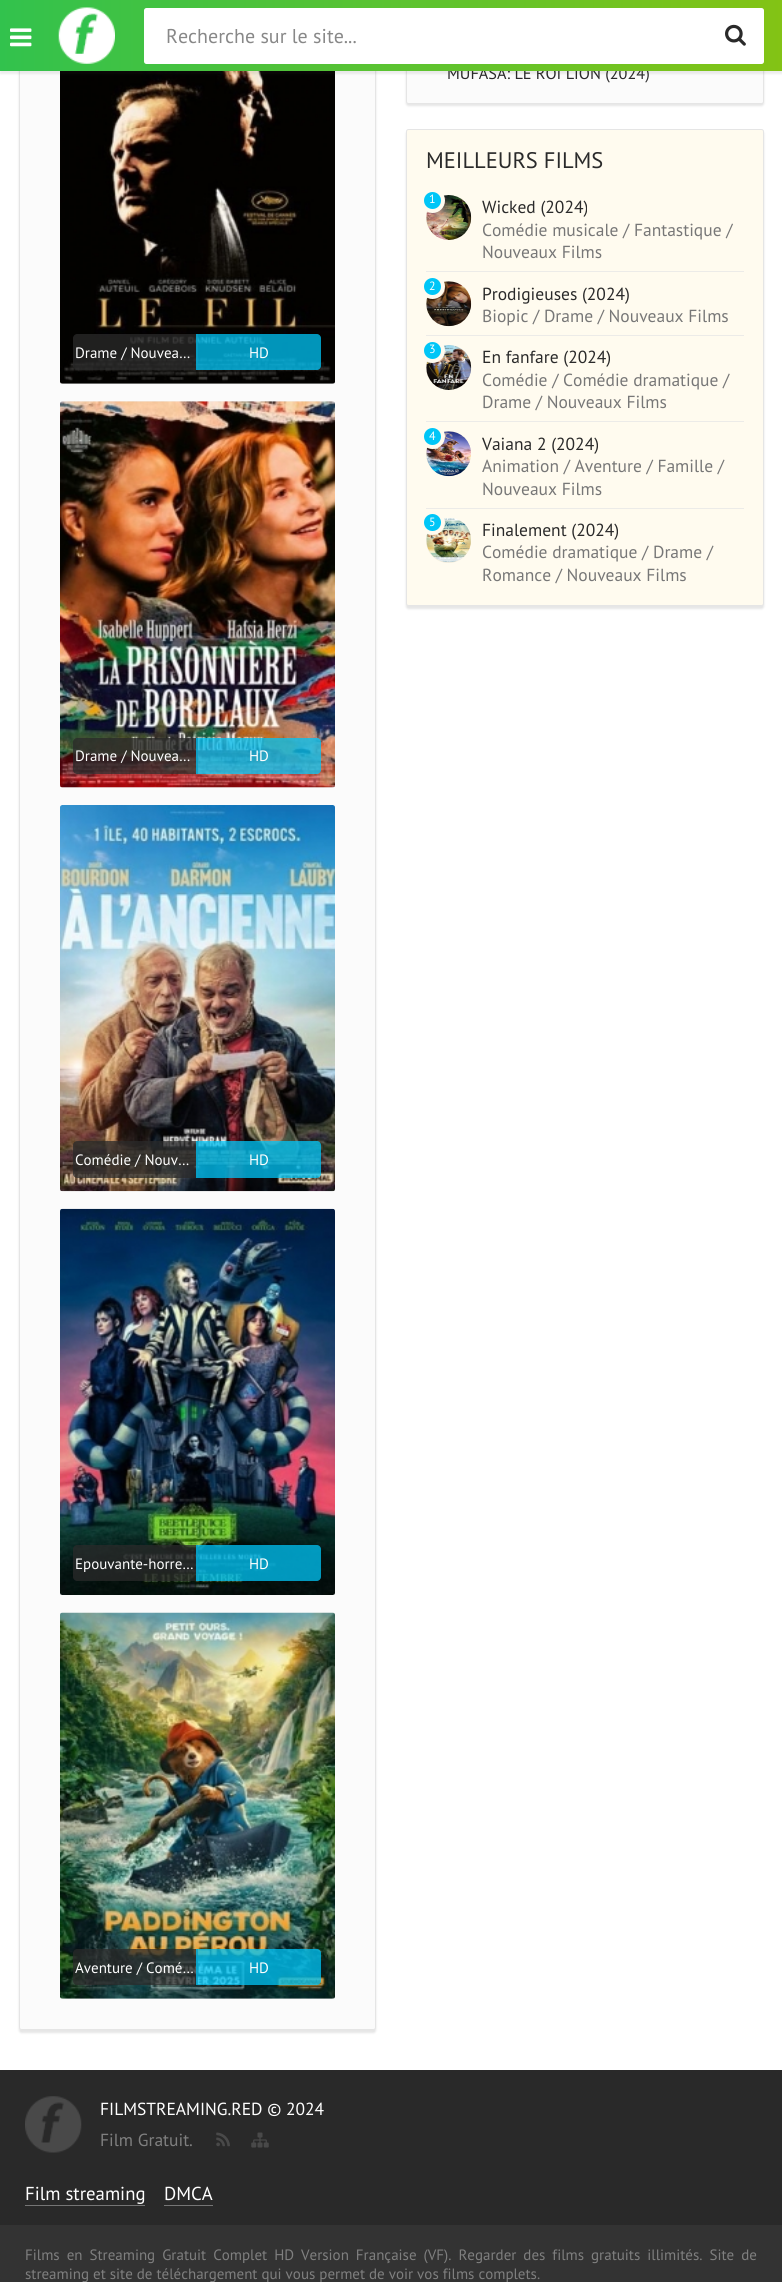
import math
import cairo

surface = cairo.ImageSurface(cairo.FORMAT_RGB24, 782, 2282)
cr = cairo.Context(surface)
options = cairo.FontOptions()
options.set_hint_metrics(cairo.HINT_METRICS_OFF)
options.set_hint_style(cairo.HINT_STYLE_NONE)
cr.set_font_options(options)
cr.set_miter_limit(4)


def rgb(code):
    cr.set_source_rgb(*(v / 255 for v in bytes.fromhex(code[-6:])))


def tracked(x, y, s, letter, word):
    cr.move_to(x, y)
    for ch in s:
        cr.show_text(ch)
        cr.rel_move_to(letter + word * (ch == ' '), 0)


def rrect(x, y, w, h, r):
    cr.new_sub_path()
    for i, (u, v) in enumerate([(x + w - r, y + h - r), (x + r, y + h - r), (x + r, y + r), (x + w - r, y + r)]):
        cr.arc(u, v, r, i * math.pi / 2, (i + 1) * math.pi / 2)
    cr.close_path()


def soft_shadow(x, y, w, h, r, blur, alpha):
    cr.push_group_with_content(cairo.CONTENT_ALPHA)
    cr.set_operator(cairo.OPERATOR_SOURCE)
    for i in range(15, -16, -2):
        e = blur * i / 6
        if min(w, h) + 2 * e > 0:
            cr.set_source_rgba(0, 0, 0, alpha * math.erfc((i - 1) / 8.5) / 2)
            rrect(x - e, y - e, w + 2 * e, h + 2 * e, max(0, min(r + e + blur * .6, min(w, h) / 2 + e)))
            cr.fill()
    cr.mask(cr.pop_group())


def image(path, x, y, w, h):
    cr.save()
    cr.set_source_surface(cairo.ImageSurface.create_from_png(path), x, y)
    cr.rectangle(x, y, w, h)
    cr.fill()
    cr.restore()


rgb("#ffffff")
cr.paint()
rgb("#000000")
soft_shadow(19, -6, 357, 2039, 2.5, 1, 0.1)
rgb("#fbfbfb")
rrect(19.5, -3.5, 356, 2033, 2)
cr.fill_preserve()
rgb("#e5e5e5")
cr.set_line_width(1)
cr.stroke()
rgb("#f1f1f1")
rrect(60, -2, 275, 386, 2.5)
cr.fill()
image("img/4.png", 60, 71, 275, 313)
rgb("#000000")
soft_shadow(406, -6, 358, 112, 2.5, 1, 0.1)
rgb("#fbfbfb")
rrect(406.5, -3.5, 357, 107, 2)
cr.fill_preserve()
rgb("#e5e5e5")
cr.stroke()
rgb("#444444")
soft_shadow(0, 3, 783, 71, 0, 1, 0.1)
cr.set_source_rgba(0.165, 0.165, 0.165, 0.75)
cr.new_path()
cr.move_to(77, 334)
cr.line_to(198, 334)
cr.line_to(198, 370)
cr.line_to(77, 370)
cr.curve_to(75, 370, 73, 368, 73, 366)
cr.line_to(73, 338)
cr.curve_to(73, 336, 75, 334, 77, 334)
cr.close_path()
cr.fill()
cr.set_source_rgba(0, 0.776, 0.969, 0.75)
cr.new_path()
cr.move_to(196, 334)
cr.line_to(317, 334)
cr.curve_to(319, 334, 321, 336, 321, 338)
cr.line_to(321, 366)
cr.curve_to(321, 368, 319, 370, 317, 370)
cr.line_to(196, 370)
cr.close_path()
cr.fill()
rgb("#f1f1f1")
rrect(60, 401, 275, 387, 2.5)
cr.fill()
image("img/5.png", 60, 401, 275, 387)
cr.set_source_rgba(0.165, 0.165, 0.165, 0.75)
cr.new_path()
cr.move_to(77, 738)
cr.line_to(198, 738)
cr.line_to(198, 774)
cr.line_to(77, 774)
cr.curve_to(75, 774, 73, 772, 73, 770)
cr.line_to(73, 742)
cr.curve_to(73, 740, 75, 738, 77, 738)
cr.close_path()
cr.fill()
cr.set_source_rgba(0, 0.776, 0.969, 0.75)
cr.new_path()
cr.move_to(196, 738)
cr.line_to(317, 738)
cr.curve_to(319, 738, 321, 740, 321, 742)
cr.line_to(321, 770)
cr.curve_to(321, 772, 319, 774, 317, 774)
cr.line_to(196, 774)
cr.close_path()
cr.fill()
image("img/6.png", 60, 805, 275, 387)
cr.set_source_rgba(0.165, 0.165, 0.165, 0.75)
cr.new_path()
cr.move_to(77, 1141)
cr.line_to(198, 1141)
cr.line_to(198, 1178)
cr.line_to(77, 1178)
cr.curve_to(75, 1178, 73, 1176, 73, 1174)
cr.line_to(73, 1145)
cr.curve_to(73, 1143, 75, 1141, 77, 1141)
cr.close_path()
cr.fill()
cr.set_source_rgba(0, 0.776, 0.969, 0.75)
cr.new_path()
cr.move_to(196, 1141)
cr.line_to(317, 1141)
cr.curve_to(319, 1141, 321, 1143, 321, 1145)
cr.line_to(321, 1174)
cr.curve_to(321, 1176, 319, 1178, 317, 1178)
cr.line_to(196, 1178)
cr.close_path()
cr.fill()
image("img/7.png", 60, 1208, 275, 387)
cr.set_source_rgba(0.165, 0.165, 0.165, 0.75)
cr.new_path()
cr.move_to(77, 1545)
cr.line_to(198, 1545)
cr.line_to(198, 1581)
cr.line_to(77, 1581)
cr.curve_to(75, 1581, 73, 1579, 73, 1577)
cr.line_to(73, 1549)
cr.curve_to(73, 1547, 75, 1545, 77, 1545)
cr.close_path()
cr.fill()
cr.set_source_rgba(0, 0.776, 0.969, 0.75)
cr.new_path()
cr.move_to(196, 1545)
cr.line_to(317, 1545)
cr.curve_to(319, 1545, 321, 1547, 321, 1549)
cr.line_to(321, 1577)
cr.curve_to(321, 1579, 319, 1581, 317, 1581)
cr.line_to(196, 1581)
cr.close_path()
cr.fill()
rgb("#f1f1f1")
rrect(60, 1613, 275, 386, 2.5)
cr.fill()
image("img/8.png", 60, 1612, 275, 387)
cr.set_source_rgba(0.165, 0.165, 0.165, 0.75)
cr.new_path()
cr.move_to(77, 1949)
cr.line_to(198, 1949)
cr.line_to(198, 1985)
cr.line_to(77, 1985)
cr.curve_to(75, 1985, 73, 1983, 73, 1981)
cr.line_to(73, 1953)
cr.curve_to(73, 1951, 75, 1949, 77, 1949)
cr.close_path()
cr.fill()
cr.set_source_rgba(0, 0.776, 0.969, 0.75)
cr.new_path()
cr.move_to(196, 1949)
cr.line_to(317, 1949)
cr.curve_to(319, 1949, 321, 1951, 321, 1953)
cr.line_to(321, 1981)
cr.curve_to(321, 1983, 319, 1985, 317, 1985)
cr.line_to(196, 1985)
cr.close_path()
cr.fill()
rgb("#000000")
soft_shadow(406, 131, 358, 478, 2.5, 1, 0.1)
rgb("#fffbef")
rrect(406.5, 129.5, 357, 476, 2)
cr.fill_preserve()
rgb("#e5e5e5")
cr.stroke()
rgb("#ecebe8")
cr.rectangle(426, 271, 318, 1)
cr.fill()
rgb("#f3ecda")
cr.arc(448.5, 217.5, 22.5, 0, 2 * math.pi)
cr.fill()
image("img/9.png", 426, 195, 46, 45)
rgb("#00c6f7")
cr.arc(432.5, 200.5, 10.5, 0, 2 * math.pi)
cr.fill_preserve()
rgb("#fffbef")
cr.set_line_width(4)
cr.stroke()
rgb("#ecebe8")
cr.rectangle(426, 335, 318, 1)
cr.fill()
rgb("#f3ecda")
cr.arc(448.5, 303.5, 22.5, 0, 2 * math.pi)
cr.fill()
image("img/10.png", 426, 281, 46, 46)
rgb("#00c6f7")
cr.arc(432.5, 286.5, 10.5, 0, 2 * math.pi)
cr.fill_preserve()
rgb("#fffbef")
cr.stroke()
rgb("#ecebe8")
cr.rectangle(426, 421, 318, 1)
cr.fill()
rgb("#f3ecda")
cr.arc(448.5, 367.5, 22.5, 0, 2 * math.pi)
cr.fill()
image("img/11.png", 426, 345, 46, 45)
rgb("#00c6f7")
cr.arc(432.5, 350.5, 10.5, 0, 2 * math.pi)
cr.fill_preserve()
rgb("#fffbef")
cr.stroke()
rgb("#ecebe8")
cr.rectangle(426, 508, 318, 1)
cr.fill()
rgb("#f3ecda")
cr.arc(448.5, 453.5, 22.5, 0, 2 * math.pi)
cr.fill()
image("img/12.png", 426, 431, 45, 46)
rgb("#00c6f7")
cr.arc(432.5, 436.5, 10.5, 0, 2 * math.pi)
cr.fill_preserve()
rgb("#fffbef")
cr.stroke()
rgb("#f3ecda")
cr.arc(448.5, 540.5, 22.5, 0, 2 * math.pi)
cr.fill()
image("img/13.png", 426, 518, 45, 45)
rgb("#00c6f7")
cr.arc(432.5, 522.5, 10.5, 0, 2 * math.pi)
cr.fill_preserve()
rgb("#fffbef")
cr.stroke()
rgb("#333333")
cr.rectangle(0, 2225, 782, 57)
cr.fill()
rgb("#292929")
cr.rectangle(0, 2070, 782, 155)
cr.fill()
image("img/14.png", 25, 2096, 57, 57)
image("img/15.png", 216, 2132, 14, 15)
image("img/16.png", 251, 2132, 18, 16)
rgb("#757575")
cr.rectangle(25, 2205, 120, 1)
cr.fill()
cr.rectangle(164, 2205, 49, 1)
cr.fill()
cr.select_font_face("PT Sans")
cr.set_font_size(15)
rgb("#ffffff")
for x, y, s in [
    (75, 358, "Drame / Nouvea…"),
    (249, 358, "HD"),
    (75, 761, "Drame / Nouvea…"),
    (249, 761, "HD"),
    (75, 1165, "Comédie / Nouv…"),
    (249, 1165, "HD"),
    (75, 1569, "Epouvante-horre…"),
    (249, 1569, "HD"),
    (75, 1973, "Aventure / Comé…"),
    (249, 1973, "HD"),
]:
    cr.move_to(x, y)
    cr.show_text(s)
cr.set_font_size(16.25)
rgb("#2a2a2a")
cr.move_to(447, 79)
cr.show_text("MUFASA: LE ROI LION (2024)")
gradient = cairo.LinearGradient(0, 36, 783, 36)
gradient.add_color_stop_rgba(0, 0.196, 0.761, 0.302, 1)
gradient.add_color_stop_rgba(1, 0.514, 0.765, 0.082, 1)
cr.set_source(gradient)
cr.rectangle(0, 0, 782, 71)
cr.fill()
rgb("#ffffff")
rrect(144, 8, 620, 56, 2.5)
cr.fill()
image("img/3.png", 725, 24, 21, 22)
image("img/2.png", 58, 7, 57, 57)
cr.set_font_size(20)
rgb("#888888")
cr.move_to(166, 43)
cr.show_text("Recherche sur le site...")
image("img/1.png", 10, 28, 22, 19)
cr.set_font_size(22.5)
rgb("#2a2a2a")
cr.move_to(426, 168)
cr.show_text("MEILLEURS FILMS")
cr.set_font_size(12)
rgb("#ffffff")
cr.move_to(429, 203)
cr.show_text("1")
cr.set_font_size(17.5)
rgb("#2a2a2a")
cr.move_to(482, 213)
cr.show_text("Wicked (2024)")
rgb("#777777")
cr.move_to(482, 236)
cr.show_text("Comédie musicale / Fantastique /")
cr.move_to(482, 258)
cr.show_text("Nouveaux Films")
cr.set_font_size(12)
rgb("#ffffff")
cr.move_to(429, 290)
cr.show_text("2")
cr.set_font_size(17.5)
rgb("#2a2a2a")
cr.move_to(482, 300)
cr.show_text("Prodigieuses (2024)")
rgb("#777777")
cr.move_to(482, 322)
cr.show_text("Biopic / Drame / Nouveaux Films")
cr.set_font_size(12)
rgb("#ffffff")
cr.move_to(429, 353)
cr.show_text("3")
cr.set_font_size(17.5)
rgb("#2a2a2a")
cr.move_to(482, 363)
cr.show_text("En fanfare (2024)")
rgb("#777777")
cr.move_to(482, 386)
cr.show_text("Comédie / Comédie dramatique /")
cr.move_to(482, 408)
cr.show_text("Drame / Nouveaux Films")
cr.set_font_size(12)
rgb("#ffffff")
cr.move_to(429, 440)
cr.show_text("4")
cr.set_font_size(17.5)
rgb("#2a2a2a")
cr.move_to(482, 450)
cr.show_text("Vaiana 2 (2024)")
rgb("#777777")
cr.move_to(482, 472)
cr.show_text("Animation / Aventure / Famille /")
cr.move_to(482, 495)
cr.show_text("Nouveaux Films")
cr.set_font_size(12)
rgb("#ffffff")
cr.move_to(429, 526)
cr.show_text("5")
cr.set_font_size(17.5)
rgb("#2a2a2a")
cr.move_to(482, 536)
cr.show_text("Finalement (2024)")
rgb("#777777")
cr.move_to(482, 558)
cr.show_text("Comédie dramatique / Drame /")
cr.move_to(482, 581)
cr.show_text("Romance / Nouveaux Films")
rgb("#ffffff")
cr.move_to(100, 2115)
cr.show_text("FILMSTREAMING.RED © 2024")
rgb("#7f7f7f")
cr.move_to(100, 2146)
cr.show_text("Film Gratuit.")
cr.set_font_size(18.75)
rgb("#ffffff")
cr.move_to(25, 2200)
cr.show_text("Film streaming")
cr.move_to(164, 2200)
cr.show_text("DMCA")
cr.set_font_size(15)
rgb("#7f7f7f")
tracked(25, 2260, "Films en Streaming Gratuit Complet HD Version Française (VF). Regarder des films gratuits illimités. Site de", 0, 3)
cr.move_to(25, 2279)
cr.show_text("streaming et site de téléchargement qui vous permet de voir vos films complets.")
surface.write_to_png("page.png")
